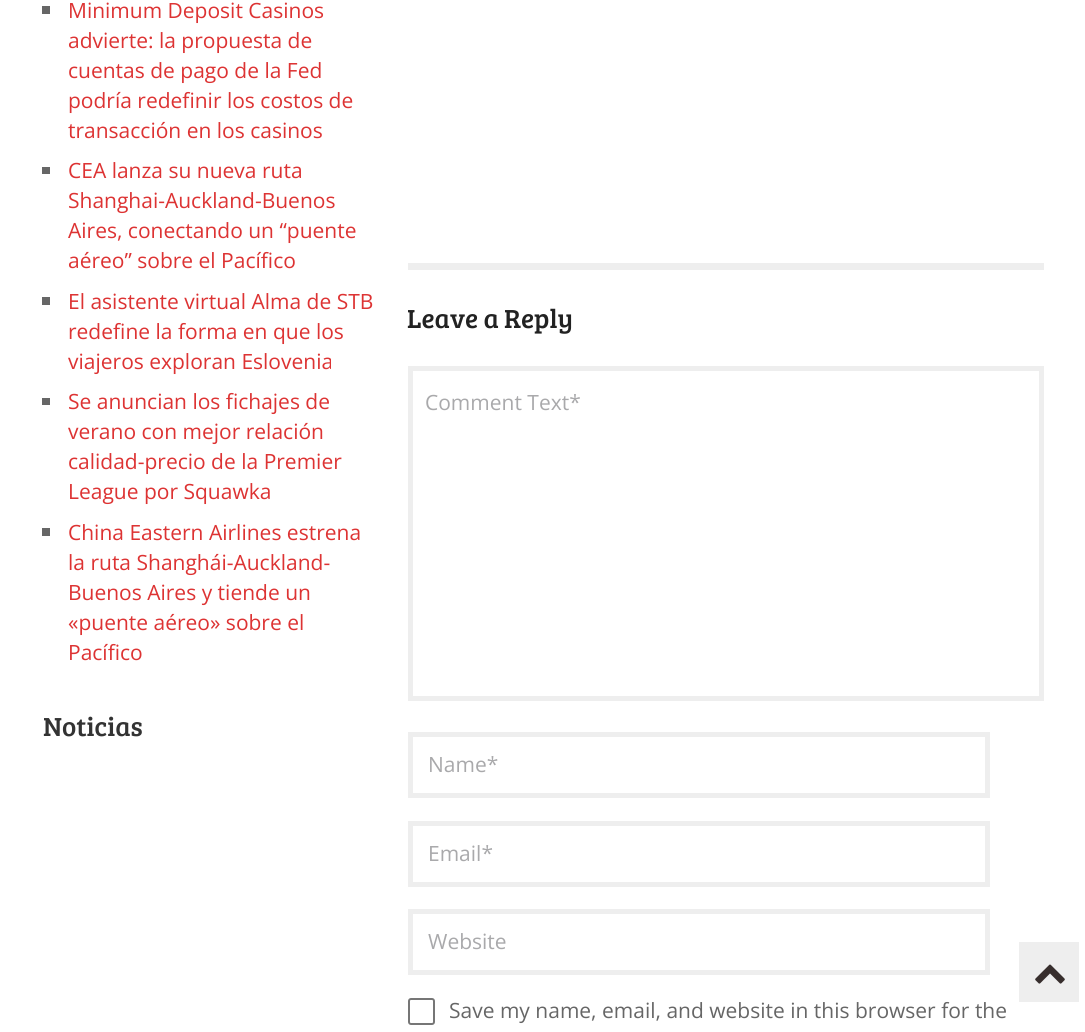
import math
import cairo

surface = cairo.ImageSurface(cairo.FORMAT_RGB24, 1085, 1032)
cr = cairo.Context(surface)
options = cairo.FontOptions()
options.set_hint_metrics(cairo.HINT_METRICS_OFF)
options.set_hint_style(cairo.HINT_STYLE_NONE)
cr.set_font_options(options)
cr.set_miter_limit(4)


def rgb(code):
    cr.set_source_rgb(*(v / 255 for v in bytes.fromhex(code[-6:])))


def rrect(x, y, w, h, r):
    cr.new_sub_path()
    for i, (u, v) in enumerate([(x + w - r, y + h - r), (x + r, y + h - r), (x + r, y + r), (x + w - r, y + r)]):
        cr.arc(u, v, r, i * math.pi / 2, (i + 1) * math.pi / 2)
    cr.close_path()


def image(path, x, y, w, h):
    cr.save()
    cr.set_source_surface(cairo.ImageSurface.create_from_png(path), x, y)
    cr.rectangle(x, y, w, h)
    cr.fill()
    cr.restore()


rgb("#ffffff")
cr.paint()
for x, y, w, h, color in [
    (42, 6, 8, 8, "#666666"),
    (42, 167, 8, 7, "#666666"),
    (42, 297, 8, 8, "#666666"),
    (42, 398, 8, 7, "#666666"),
    (42, 528, 8, 8, "#666666"),
    (408, 263, 636, 7, "#eeeeee"),
]:
    rgb(color)
    cr.rectangle(x, y, w, h)
    cr.fill()
cr.rectangle(410.5, 368.5, 631, 330)
cr.set_line_width(5)
cr.stroke()
cr.rectangle(410.5, 734.5, 577, 61)
cr.stroke()
cr.rectangle(410.5, 823.5, 577, 61)
cr.stroke()
cr.rectangle(410.5, 911.5, 577, 61)
cr.stroke()
rrect(409, 999, 25, 25, 2)
rgb("#767676")
cr.set_line_width(2)
cr.stroke()
rgb("#eeeeee")
cr.rectangle(1019, 942, 60, 60)
cr.fill()
image("img/1.png", 1035, 964, 30, 20)
cr.select_font_face("Open Sans")
cr.set_font_size(21)
rgb("#dd3333")
for x, y, s in [
    (68, 18, "Minimum Deposit Casinos"),
    (68, 48, "advierte: la propuesta de"),
    (68, 78, "cuentas de pago de la Fed"),
    (68, 108, "podría redefinir los costos de"),
    (68, 138, "transacción en los casinos"),
    (68, 178, "CEA lanza su nueva ruta"),
    (68, 208, "Shanghai-Auckland-Buenos"),
    (68, 238, "Aires, conectando un “puente"),
    (68, 268, "aéreo” sobre el Pacífico"),
    (68, 309, "El asistente virtual Alma de STB"),
    (68, 339, "redefine la forma en que los"),
    (68, 369, "viajeros exploran Eslovenia"),
    (68, 409, "Se anuncian los fichajes de"),
    (68, 439, "verano con mejor relación"),
    (68, 469, "calidad-precio de la Premier"),
    (68, 499, "League por Squawka"),
    (68, 540, "China Eastern Airlines estrena"),
    (68, 570, "la ruta Shanghái-Auckland-"),
    (68, 600, "Buenos Aires y tiende un"),
    (68, 630, "«puente aéreo» sobre el"),
    (68, 660, "Pacífico"),
]:
    cr.move_to(x, y)
    cr.show_text(s)
cr.select_font_face("Bree Serif")
cr.set_font_size(27)
rgb("#333333")
cr.move_to(43, 736)
cr.show_text("Noticias")
rgb("#222222")
cr.move_to(407, 328)
cr.show_text("Leave a Reply")
cr.select_font_face("Open Sans")
cr.set_font_size(21)
rgb("#a9a9ab")
for x, y, s in [
    (425, 410, "Comment Text*"),
    (428, 772, "Name*"),
    (428, 861, "Email*"),
    (428, 949, "Website"),
]:
    cr.move_to(x, y)
    cr.show_text(s)
rgb("#666666")
cr.move_to(449, 1018)
cr.show_text("Save my name, email, and website in this browser for the")
surface.write_to_png("page.png")
